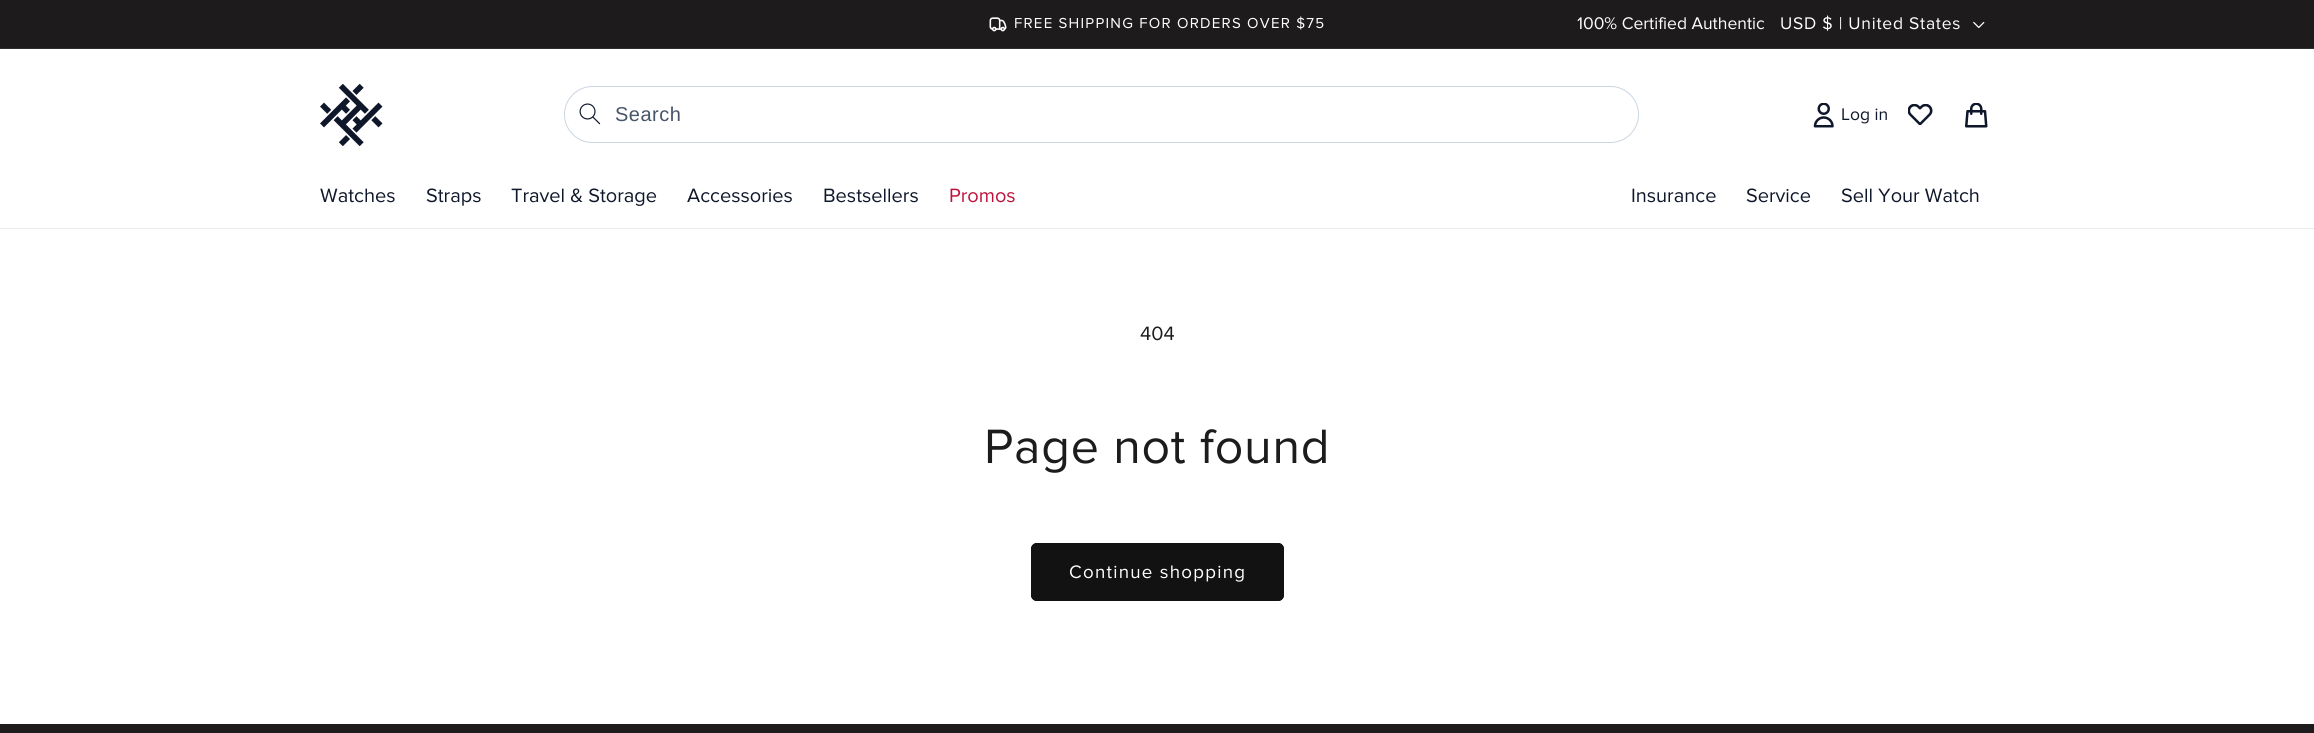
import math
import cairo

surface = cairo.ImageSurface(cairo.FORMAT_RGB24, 2314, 733)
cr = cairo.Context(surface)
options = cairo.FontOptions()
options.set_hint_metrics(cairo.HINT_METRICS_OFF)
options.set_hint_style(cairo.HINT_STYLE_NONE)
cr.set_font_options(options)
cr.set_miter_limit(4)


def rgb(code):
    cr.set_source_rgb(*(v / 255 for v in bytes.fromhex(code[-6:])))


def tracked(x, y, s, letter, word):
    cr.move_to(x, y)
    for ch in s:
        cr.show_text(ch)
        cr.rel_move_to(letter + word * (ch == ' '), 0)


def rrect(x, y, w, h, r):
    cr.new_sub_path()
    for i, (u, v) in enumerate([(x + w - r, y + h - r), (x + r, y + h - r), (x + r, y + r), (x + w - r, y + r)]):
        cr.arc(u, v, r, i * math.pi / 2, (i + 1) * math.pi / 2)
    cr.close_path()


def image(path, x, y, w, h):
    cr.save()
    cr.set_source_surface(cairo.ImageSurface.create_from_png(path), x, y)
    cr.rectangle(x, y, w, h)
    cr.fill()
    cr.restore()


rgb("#ffffff")
cr.paint()
rgb("#1d1b1c")
cr.rectangle(0, 0, 2314, 48)
cr.fill()
rgb("#2f2d2e")
cr.rectangle(0, 48, 2314, 1)
cr.fill()
image("img/1.png", 989, 17, 18, 15)
image("img/2.png", 1973, 21, 12, 8)
rgb("#ececee")
cr.rectangle(0, 228, 2314, 1)
cr.fill()
image("img/3.png", 320, 84, 63, 62)
rrect(564.5, 86.5, 1074, 56, 28)
rgb("#cbd5e1")
cr.set_line_width(1)
cr.stroke()
image("img/4.png", 579, 103, 22, 22)
image("img/5.png", 1813, 103, 21, 25)
image("img/6.png", 1908, 104, 25, 21)
image("img/7.png", 1965, 103, 23, 25)
rgb("#121212")
rrect(1031, 543, 253, 58, 6)
cr.fill()
rrect(1031.5, 543.5, 252, 57, 5.5)
cr.stroke()
rgb("#1d1b1c")
cr.rectangle(0, 724, 2314, 9)
cr.fill()
cr.select_font_face("Proxima Nova")
cr.set_font_size(15)
rgb("#ffffff")
tracked(1014, 28, "FREE SHIPPING FOR ORDERS OVER $75", 1.25, 0)
cr.set_font_size(17.5)
cr.move_to(1577, 29)
cr.show_text("100% Certified Authentic")
tracked(1780, 29, "USD $ | United States", 0.75, 0)
cr.select_font_face("Liberation Sans")
cr.set_font_size(20)
rgb("#475569")
tracked(615, 121, "Search", 0.5, 0)
cr.select_font_face("Proxima Nova")
cr.set_font_size(17.5)
rgb("#0f172a")
cr.move_to(1841, 120)
cr.show_text("Log in")
cr.set_font_size(20)
for x, y, s in [
    (320, 202, "Watches"),
    (426, 202, "Straps"),
    (511, 202, "Travel & Storage"),
    (687, 202, "Accessories"),
    (823, 202, "Bestsellers"),
]:
    cr.move_to(x, y)
    cr.show_text(s)
rgb("#be123c")
cr.move_to(949, 202)
cr.show_text("Promos")
rgb("#0f172a")
for x, y, s in [
    (1631, 202, "Insurance"),
    (1746, 202, "Service"),
    (1841, 202, "Sell Your Watch"),
]:
    cr.move_to(x, y)
    cr.show_text(s)
rgb("#1d1b1c")
cr.move_to(1140, 340)
cr.show_text("404")
cr.set_font_size(50)
tracked(984, 463, "Page not found", 0.75, 0)
cr.set_font_size(18.75)
rgb("#ffffff")
tracked(1069, 578, "Continue shopping", 1.25, 0)
surface.write_to_png("page.png")
